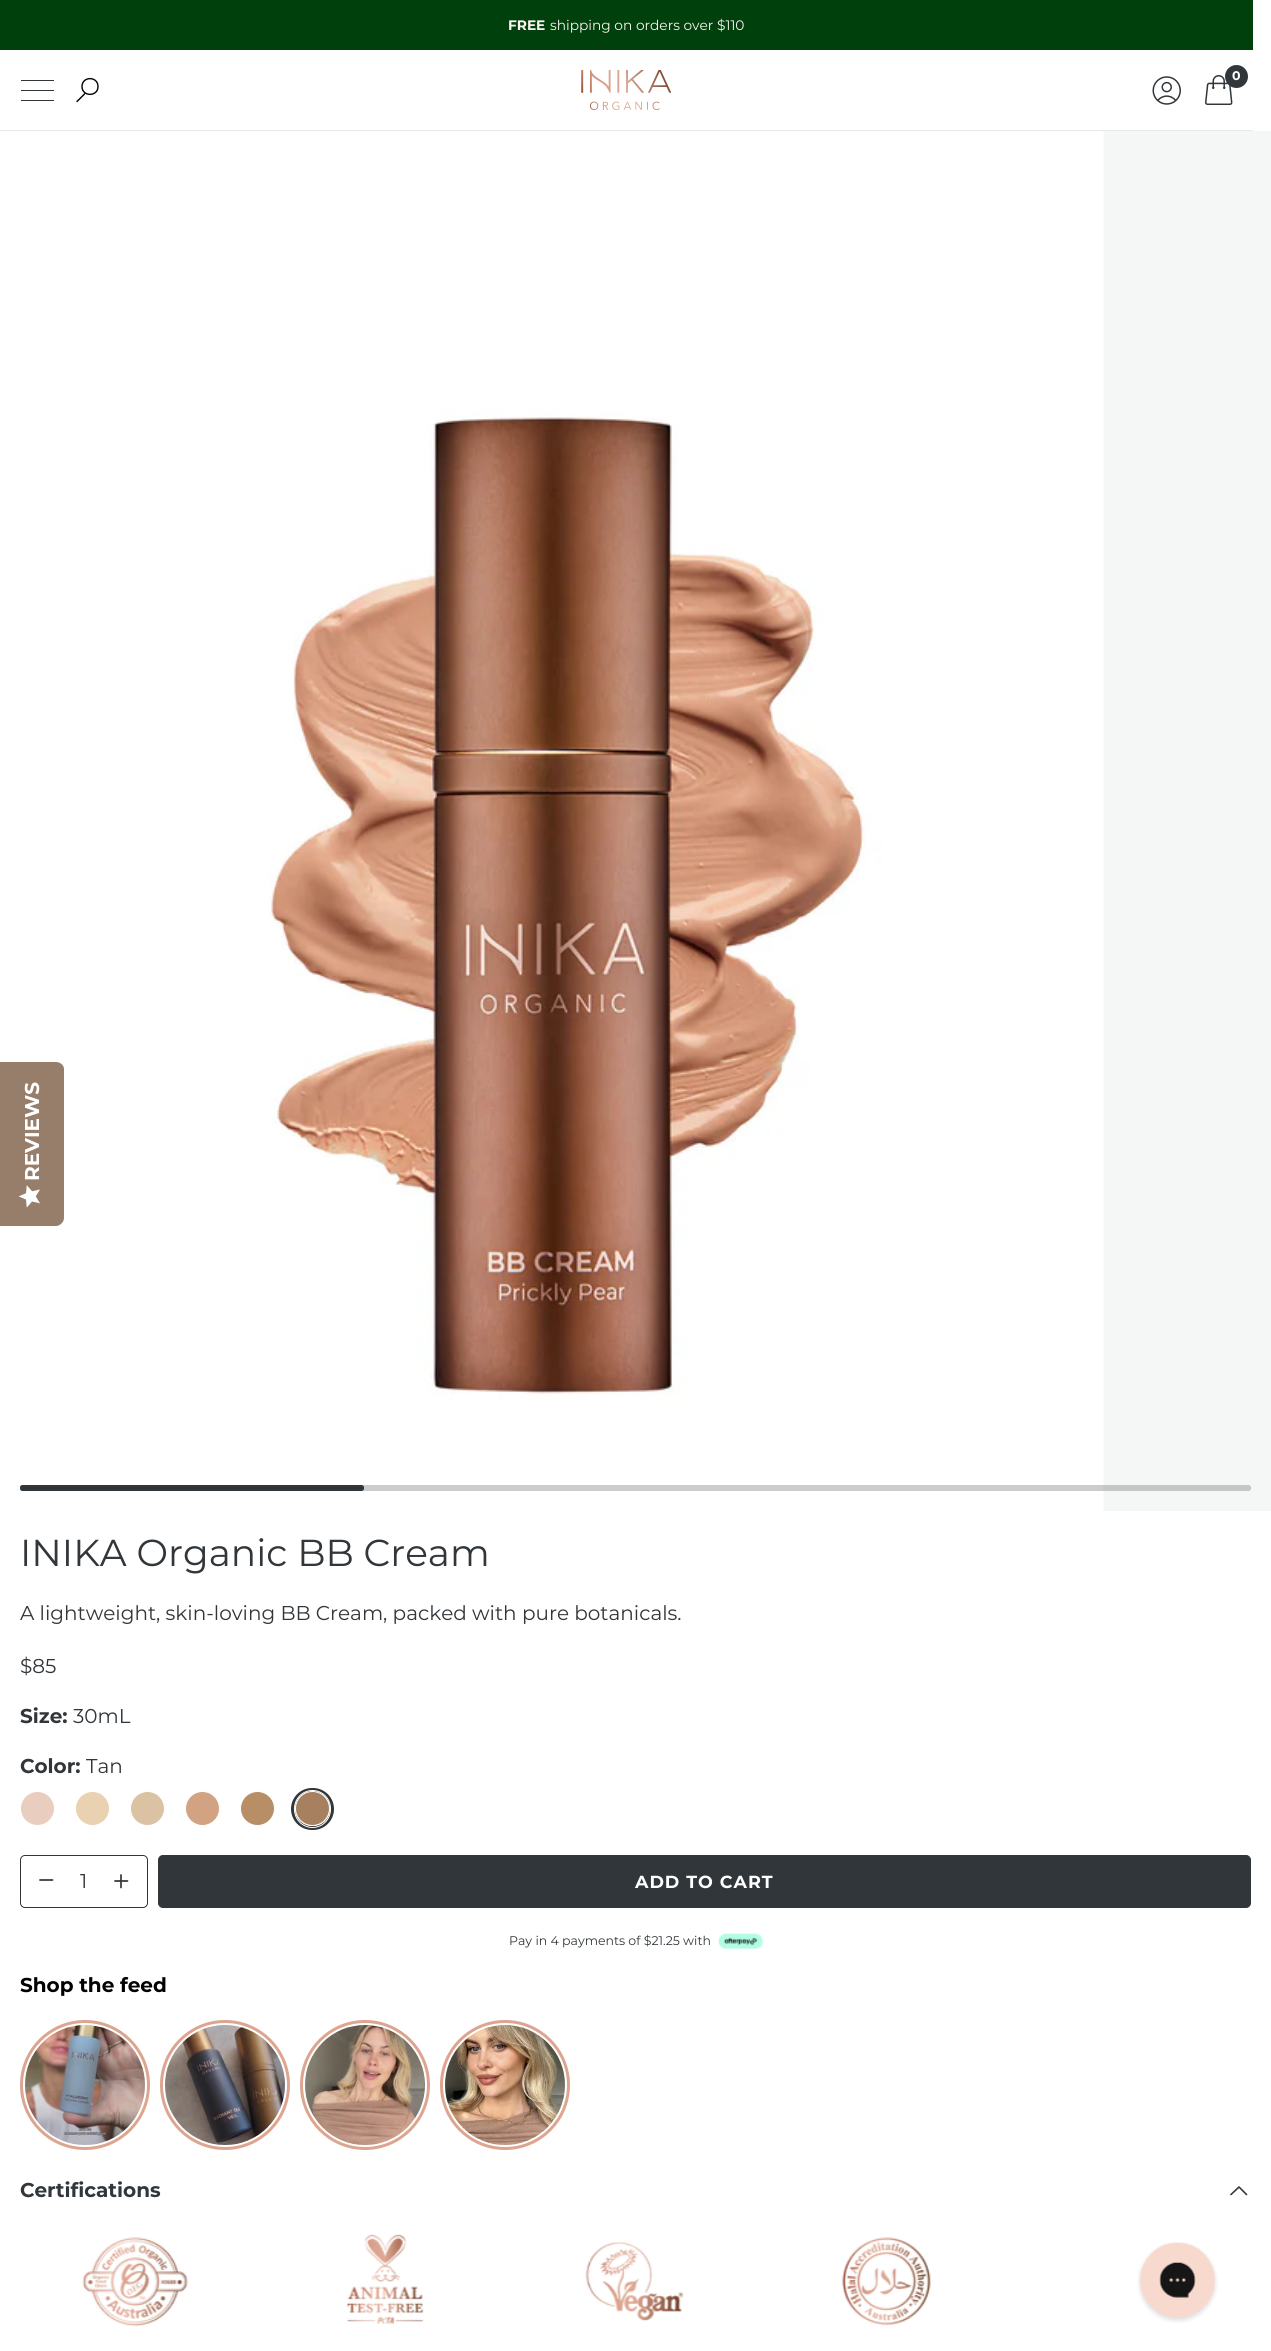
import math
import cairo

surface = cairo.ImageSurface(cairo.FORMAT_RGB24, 1271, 2351)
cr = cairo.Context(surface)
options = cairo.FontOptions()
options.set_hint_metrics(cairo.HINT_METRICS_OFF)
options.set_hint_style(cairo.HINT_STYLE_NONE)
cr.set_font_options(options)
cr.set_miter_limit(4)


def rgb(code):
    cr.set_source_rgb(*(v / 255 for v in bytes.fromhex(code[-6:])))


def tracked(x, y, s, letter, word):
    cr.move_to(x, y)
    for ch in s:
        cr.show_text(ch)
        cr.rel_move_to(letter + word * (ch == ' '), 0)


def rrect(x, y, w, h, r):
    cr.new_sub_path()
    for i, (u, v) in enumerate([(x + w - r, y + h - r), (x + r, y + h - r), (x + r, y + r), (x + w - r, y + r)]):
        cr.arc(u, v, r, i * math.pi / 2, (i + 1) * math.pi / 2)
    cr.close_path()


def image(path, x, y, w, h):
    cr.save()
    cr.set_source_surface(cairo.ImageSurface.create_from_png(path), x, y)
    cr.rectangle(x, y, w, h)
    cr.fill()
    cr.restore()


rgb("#ffffff")
cr.paint()
rgb("#00400c")
cr.rectangle(0, 0, 1253, 50)
cr.fill()
rgb("#eaeaea")
cr.rectangle(0, 130, 1253, 1)
cr.fill()
image("img/1.png", 581, 70, 90, 40)
image("img/2.png", 1152, 76, 29, 29)
image("img/3.png", 1205, 75, 28, 30)
rgb("#31363a")
cr.arc(1236.5, 76.5, 11.5, 0, 2 * math.pi)
cr.fill()
for x, y, w, h, color in [
    (21, 80, 33, 1, "#31363a"),
    (21, 90, 33, 1, "#31363a"),
    (21, 100, 33, 1, "#31363a"),
]:
    rgb(color)
    cr.rectangle(x, y, w, h)
    cr.fill()
cr.new_path()
cr.move_to(82, 86.5)
cr.curve_to(82, 97, 98, 97, 98, 86.5)
cr.curve_to(98, 76, 82, 76, 82, 86.5)
cr.close_path()
cr.move_to(77, 101.5)
cr.line_to(84.5, 94)
rgb("#000000")
cr.set_line_width(1.4)
cr.set_line_cap(cairo.LINE_CAP_ROUND)
cr.set_line_join(cairo.LINE_JOIN_ROUND)
cr.stroke()
rgb("#f6f6f6")
cr.rectangle(0, 131, 1104, 1380)
cr.fill()
image("img/5.png", 0, 131, 1104, 1380)
rgb("#977e6b")
cr.new_path()
cr.move_to(0, 1226)
cr.line_to(0, 1062)
cr.line_to(56, 1062)
cr.curve_to(60, 1062, 64, 1065, 64, 1069)
cr.line_to(64, 1218)
cr.curve_to(64, 1222, 60, 1226, 56, 1226)
cr.close_path()
cr.fill()
image("img/4.png", 18, 1185, 22, 23)
rgb("#f5f6f6")
cr.rectangle(1104, 131, 167, 1380)
cr.fill()
cr.set_source_rgba(0.192, 0.212, 0.227, 0.25)
rrect(20, 1485, 1231, 6, 2.5)
cr.fill()
rgb("#31363a")
rrect(20, 1485, 344, 6, 2.5)
cr.fill()
rgb("#e9cdbf")
cr.arc(37.5, 1808.5, 17, 0, 2 * math.pi)
cr.fill_preserve()
rgb("#ffffff")
cr.set_line_width(1)
cr.set_line_cap(cairo.LINE_CAP_BUTT)
cr.set_line_join(cairo.LINE_JOIN_MITER)
cr.stroke()
rgb("#ead1b2")
cr.arc(92.5, 1808.5, 17, 0, 2 * math.pi)
cr.fill_preserve()
rgb("#ffffff")
cr.stroke()
rgb("#dbc2a3")
cr.arc(147.5, 1808.5, 17, 0, 2 * math.pi)
cr.fill_preserve()
rgb("#ffffff")
cr.stroke()
rgb("#d1a382")
cr.arc(202.5, 1808.5, 17, 0, 2 * math.pi)
cr.fill_preserve()
rgb("#ffffff")
cr.stroke()
rgb("#b88e66")
cr.arc(257.5, 1808.5, 17, 0, 2 * math.pi)
cr.fill_preserve()
rgb("#ffffff")
cr.stroke()
rrect(293, 1790, 39, 38, 19)
rgb("#31363a")
cr.set_line_width(4)
cr.stroke()
rrect(294.5, 1790.5, 36, 37, 18)
rgb("#ffffff")
cr.set_line_width(1)
cr.stroke()
rgb("#a7805f")
cr.arc(312.5, 1808.5, 17, 0, 2 * math.pi)
cr.fill_preserve()
rgb("#ffffff")
cr.stroke()
rrect(20.5, 1855.5, 127, 52, 4.5)
rgb("#31363a")
cr.stroke()
cr.new_path()
cr.move_to(52.5, 1880)
cr.line_to(40, 1880)
cr.set_line_width(1.7)
cr.set_line_cap(cairo.LINE_CAP_ROUND)
cr.set_line_join(cairo.LINE_JOIN_ROUND)
cr.stroke()
cr.new_path()
cr.move_to(121, 1875)
cr.line_to(121, 1887.5)
cr.move_to(127.5, 1881)
cr.line_to(115, 1881)
cr.stroke()
rrect(158.5, 1855.5, 1092, 52, 4.5)
cr.fill_preserve()
cr.set_line_width(1)
cr.set_line_cap(cairo.LINE_CAP_BUTT)
cr.set_line_join(cairo.LINE_JOIN_MITER)
cr.stroke()
image("img/6.png", 718, 1933, 45, 16)
cr.arc(85, 2085, 63.5, 0, 2 * math.pi)
rgb("#dda590")
cr.set_line_width(3)
cr.stroke()
image("img/7.png", 25, 2025, 120, 120)
cr.arc(225, 2085, 63.5, 0, 2 * math.pi)
cr.stroke()
image("img/8.png", 165, 2025, 120, 120)
cr.arc(365, 2085, 63.5, 0, 2 * math.pi)
cr.stroke()
image("img/9.png", 305, 2025, 120, 120)
cr.arc(505, 2085, 63.5, 0, 2 * math.pi)
cr.stroke()
image("img/10.png", 445, 2025, 120, 120)
cr.new_path()
cr.move_to(1231, 2194.5)
cr.line_to(1239, 2187)
cr.line_to(1246.5, 2194.5)
rgb("#31363a")
cr.set_line_width(1.6)
cr.set_line_cap(cairo.LINE_CAP_ROUND)
cr.set_line_join(cairo.LINE_JOIN_ROUND)
cr.stroke()
image("img/11.png", 82, 2237, 106, 90)
image("img/12.png", 346, 2234, 78, 90)
image("img/13.png", 585, 2241, 99, 81)
image("img/14.png", 841, 2237, 90, 89)
image("img/15.png", 1137, 2242, 81, 81)
cr.select_font_face("Montserrat", cairo.FONT_SLANT_NORMAL, cairo.FONT_WEIGHT_BOLD)
cr.set_font_size(13.75)
rgb("#fdf3f0")
cr.move_to(508, 30)
cr.show_text("FREE")
cr.select_font_face("Montserrat")
cr.move_to(550, 30)
cr.show_text("shipping on orders over $110")
cr.select_font_face("Montserrat", cairo.FONT_SLANT_NORMAL, cairo.FONT_WEIGHT_BOLD)
cr.set_font_size(12.5)
rgb("#ffffff")
cr.move_to(1232, 80)
cr.show_text("0")
cr.set_font_size(20)
cr.save()
cr.translate(39, 1181)
cr.rotate(-90 * math.pi / 180)
cr.move_to(0, 0)
cr.show_text("REVIEWS")
cr.restore()
cr.select_font_face("Montserrat")
cr.set_font_size(37.5)
rgb("#31363a")
cr.move_to(20, 1566)
cr.show_text("INIKA Organic BB Cream")
cr.set_font_size(20)
cr.move_to(20, 1620)
cr.show_text("A lightweight, skin-loving BB Cream, packed with pure botanicals.")
cr.move_to(20, 1673)
cr.show_text("$85")
cr.select_font_face("Montserrat", cairo.FONT_SLANT_NORMAL, cairo.FONT_WEIGHT_BOLD)
cr.move_to(20, 1723)
cr.show_text("Size:")
cr.select_font_face("Montserrat")
cr.move_to(73, 1723)
cr.show_text("30mL")
cr.select_font_face("Montserrat", cairo.FONT_SLANT_NORMAL, cairo.FONT_WEIGHT_BOLD)
cr.move_to(20, 1773)
cr.show_text("Color:")
cr.select_font_face("Montserrat")
cr.move_to(86, 1773)
cr.show_text("Tan")
cr.move_to(80, 1888)
cr.show_text("1")
cr.select_font_face("Montserrat", cairo.FONT_SLANT_NORMAL, cairo.FONT_WEIGHT_BOLD)
cr.set_font_size(17.5)
rgb("#ffffff")
tracked(635, 1888, "ADD TO CART", 1, 0)
cr.select_font_face("Montserrat")
cr.set_font_size(12.5)
rgb("#31363a")
cr.move_to(509, 1945)
cr.show_text("Pay in 4 payments of $21.25 with")
cr.select_font_face("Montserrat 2", cairo.FONT_SLANT_NORMAL, cairo.FONT_WEIGHT_BOLD)
cr.set_font_size(20)
rgb("#000000")
cr.move_to(20, 1992)
cr.show_text("Shop the feed")
cr.select_font_face("Montserrat", cairo.FONT_SLANT_NORMAL, cairo.FONT_WEIGHT_BOLD)
rgb("#31363a")
cr.move_to(20, 2197)
cr.show_text("Certifications")
surface.write_to_png("page.png")
